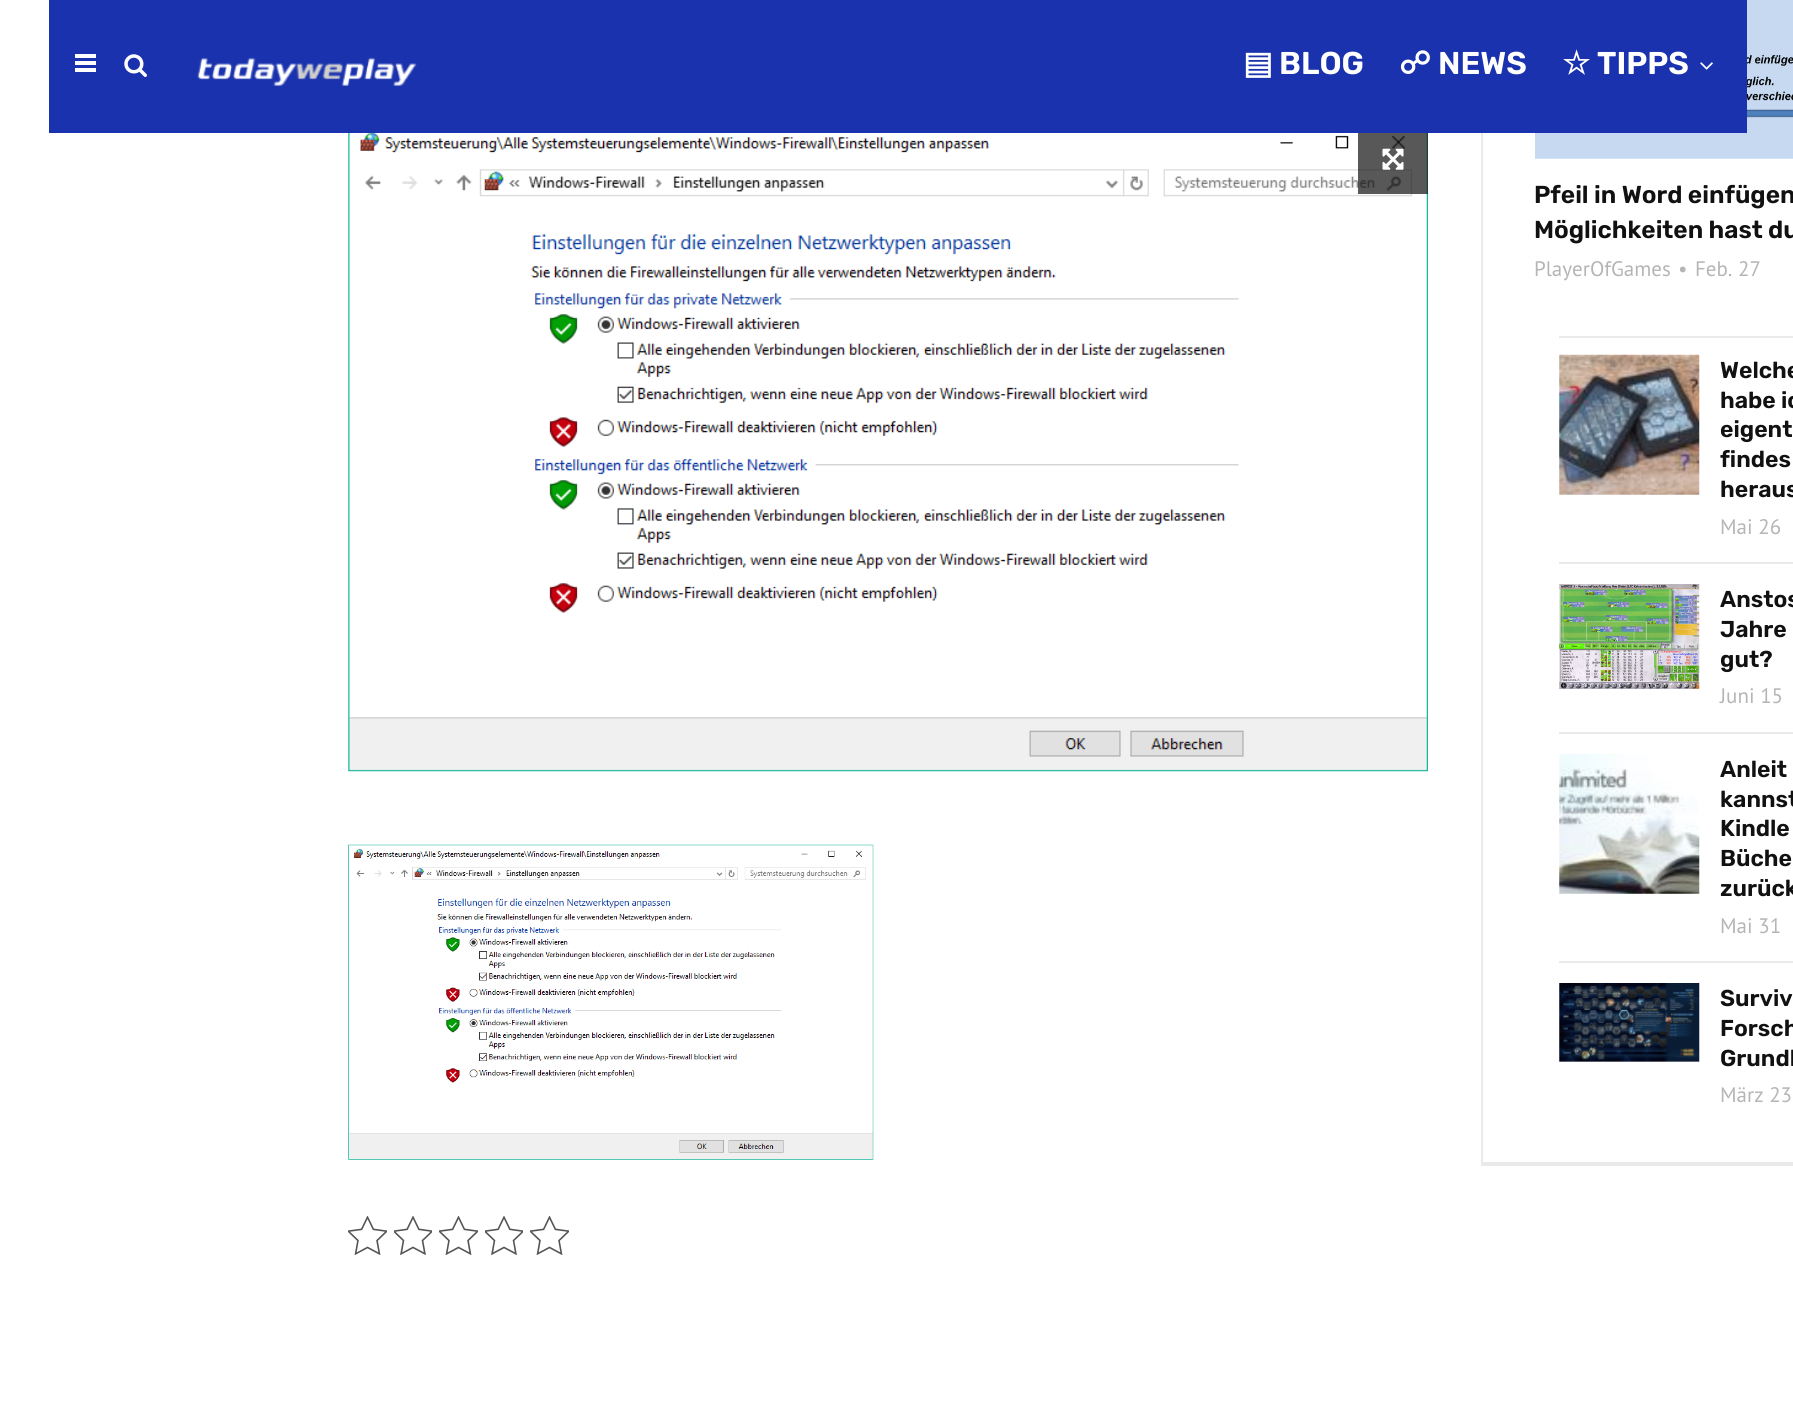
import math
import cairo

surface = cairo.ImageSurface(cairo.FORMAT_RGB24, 1793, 1409)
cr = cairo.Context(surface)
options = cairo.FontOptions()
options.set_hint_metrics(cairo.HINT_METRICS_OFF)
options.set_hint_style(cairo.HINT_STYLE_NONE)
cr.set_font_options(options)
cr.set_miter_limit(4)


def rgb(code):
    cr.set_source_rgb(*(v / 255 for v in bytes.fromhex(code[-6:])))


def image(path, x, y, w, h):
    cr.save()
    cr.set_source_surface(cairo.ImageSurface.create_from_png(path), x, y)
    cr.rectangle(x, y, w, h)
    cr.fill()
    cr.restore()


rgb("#ffffff")
cr.paint()
cr.rectangle(1482, -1, 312, 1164)
rgb("#eaeaea")
cr.stroke()
image("img/9.png", 1535, 0, 258, 159)
for x, y, w, h, color in [
    (49, 0, 1698, 133, "#1a32ad"),
    (75, 54, 21, 4, "#ffffff"),
    (75, 61, 21, 4, "#ffffff"),
    (75, 68, 21, 4, "#ffffff"),
]:
    rgb(color)
    cr.rectangle(x, y, w, h)
    cr.fill()
image("img/1.png", 124, 54, 23, 23)
image("img/2.png", 197, 57, 220, 29)
image("img/3.png", 1700, 62, 13, 8)
image("img/4.png", 348, 133, 1080, 639)
cr.set_source_rgba(0.067, 0.067, 0.067, 0.7)
cr.rectangle(1358, 133, 70, 61)
cr.fill()
image("img/5.png", 1382, 148, 22, 22)
image("img/6.png", 348, 844, 526, 316)
image("img/7.png", 348, 1216, 39, 39)
image("img/8.png", 394, 1216, 38, 39)
image("img/7.png", 439, 1216, 39, 39)
image("img/8.png", 485, 1216, 38, 39)
image("img/7.png", 530, 1216, 39, 39)
for x, y, w, h, color in [
    (1481, 1164, 312, 2, "#eaeaea"),
    (1559, 336, 234, 2, "#eaeaea"),
    (1559, 562, 234, 2, "#eaeaea"),
]:
    rgb(color)
    cr.rectangle(x, y, w, h)
    cr.fill()
image("img/10.png", 1559, 354, 141, 141)
cr.rectangle(1559, 732, 234, 2)
cr.fill()
image("img/11.png", 1559, 584, 141, 105)
cr.rectangle(1559, 961, 234, 2)
cr.fill()
image("img/12.png", 1559, 753, 141, 141)
image("img/13.png", 1559, 983, 141, 79)
cr.select_font_face("DejaVu Sans", cairo.FONT_SLANT_NORMAL, cairo.FONT_WEIGHT_BOLD)
cr.set_font_size(31.5)
rgb("#ffffff")
cr.move_to(1243, 74)
cr.show_text("▤")
cr.select_font_face("Rubik SemiBold")
cr.move_to(1279, 74)
cr.show_text("BLOG")
cr.select_font_face("DejaVu Sans", cairo.FONT_SLANT_NORMAL, cairo.FONT_WEIGHT_BOLD)
cr.move_to(1399, 74)
cr.show_text("☍")
cr.select_font_face("Rubik SemiBold")
cr.move_to(1438, 74)
cr.show_text("NEWS")
cr.select_font_face("DejaVu Sans", cairo.FONT_SLANT_NORMAL, cairo.FONT_WEIGHT_BOLD)
cr.move_to(1562, 74)
cr.show_text("☆")
cr.select_font_face("Rubik SemiBold")
cr.move_to(1597, 74)
cr.show_text("TIPPS")
cr.set_font_size(24.5)
rgb("#111111")
cr.move_to(1534, 203)
cr.show_text("Pfeil in Word einfügen")
cr.move_to(1534, 238)
cr.show_text("Möglichkeiten hast du")
cr.select_font_face("PT Sans")
cr.set_font_size(21)
rgb("#b5b5b5")
for x, y, s in [
    (1534, 276, "PlayerOfGames"),
    (1678, 276, "•"),
    (1695, 276, "Feb. 27"),
]:
    cr.move_to(x, y)
    cr.show_text(s)
cr.select_font_face("Rubik SemiBold")
cr.set_font_size(23)
rgb("#111111")
for x, y, s in [
    (1720, 378, "Welche"),
    (1720, 408, "habe ic"),
    (1720, 437, "eigent"),
    (1720, 467, "findes"),
    (1720, 497, "heraus"),
]:
    cr.move_to(x, y)
    cr.show_text(s)
cr.select_font_face("PT Sans")
cr.set_font_size(21)
rgb("#b5b5b5")
cr.move_to(1720, 534)
cr.show_text("Mai 26")
cr.select_font_face("Rubik SemiBold")
cr.set_font_size(23)
rgb("#111111")
for x, y, s in [
    (1720, 607, "Anstos"),
    (1720, 637, "Jahre"),
    (1720, 667, "gut?"),
]:
    cr.move_to(x, y)
    cr.show_text(s)
cr.select_font_face("PT Sans")
cr.set_font_size(21)
rgb("#b5b5b5")
cr.move_to(1720, 703)
cr.show_text("Juni 15")
cr.select_font_face("Rubik SemiBold")
cr.set_font_size(23)
rgb("#111111")
for x, y, s in [
    (1720, 777, "Anleit"),
    (1720, 807, "kannst"),
    (1720, 836, "Kindle"),
    (1720, 866, "Büche"),
    (1720, 896, "zurück"),
]:
    cr.move_to(x, y)
    cr.show_text(s)
cr.select_font_face("PT Sans")
cr.set_font_size(21)
rgb("#b5b5b5")
cr.move_to(1720, 933)
cr.show_text("Mai 31")
cr.select_font_face("Rubik SemiBold")
cr.set_font_size(23)
rgb("#111111")
for x, y, s in [
    (1720, 1006, "Surviv"),
    (1720, 1036, "Forsch"),
    (1720, 1066, "Grundl"),
]:
    cr.move_to(x, y)
    cr.show_text(s)
cr.select_font_face("PT Sans")
cr.set_font_size(21)
rgb("#b5b5b5")
cr.move_to(1720, 1102)
cr.show_text("März 23")
surface.write_to_png("page.png")
